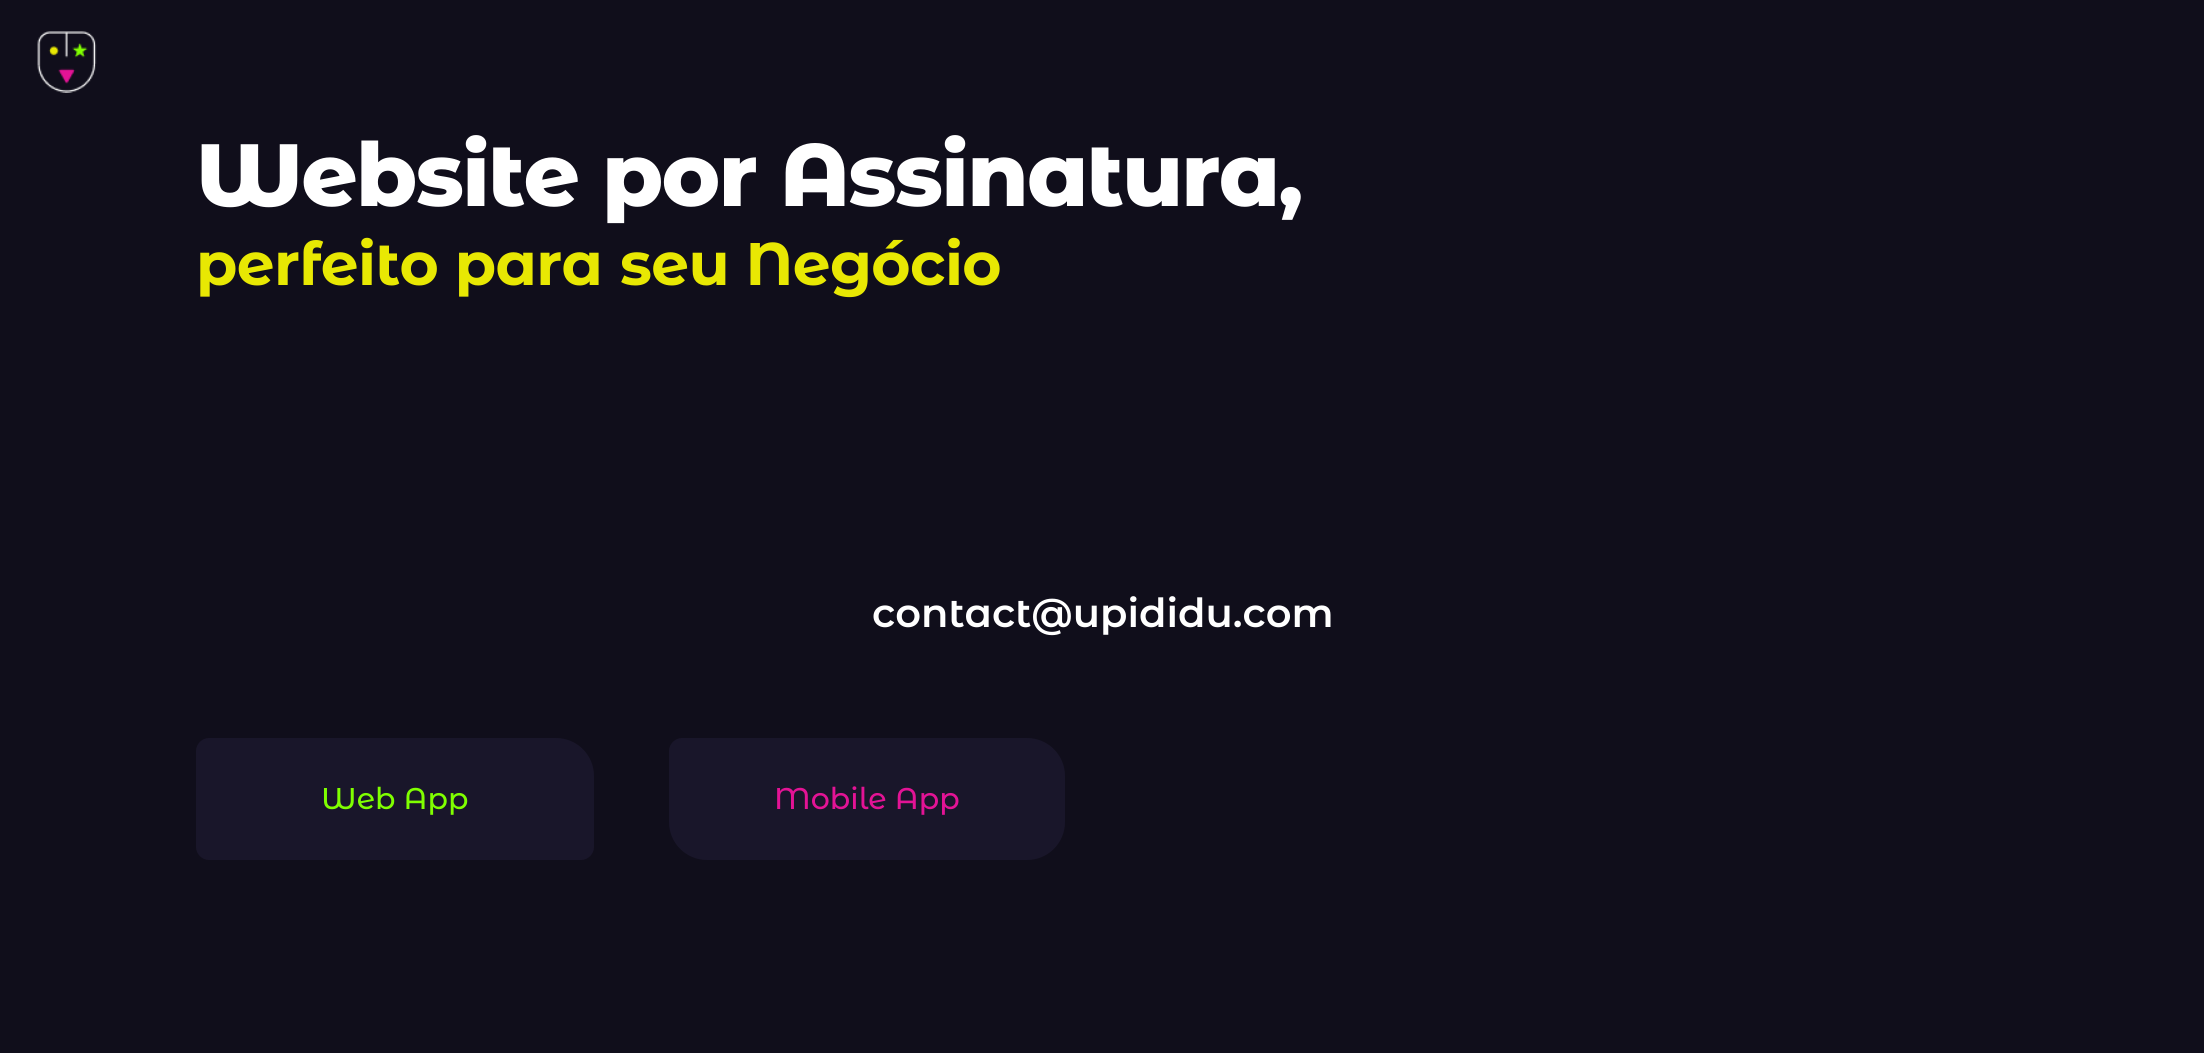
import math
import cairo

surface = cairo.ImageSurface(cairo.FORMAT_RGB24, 2204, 1053)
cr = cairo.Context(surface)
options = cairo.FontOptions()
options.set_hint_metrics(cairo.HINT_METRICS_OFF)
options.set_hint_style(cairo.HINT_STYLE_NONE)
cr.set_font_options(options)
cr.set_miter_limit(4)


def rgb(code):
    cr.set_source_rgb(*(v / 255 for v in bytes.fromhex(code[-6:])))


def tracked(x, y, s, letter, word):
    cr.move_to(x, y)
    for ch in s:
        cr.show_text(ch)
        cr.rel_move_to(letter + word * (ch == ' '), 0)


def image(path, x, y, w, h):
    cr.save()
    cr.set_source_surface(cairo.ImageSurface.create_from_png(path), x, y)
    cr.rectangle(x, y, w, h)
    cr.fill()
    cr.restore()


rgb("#100e1b")
cr.paint()
image("img/1.png", 37, 31, 60, 62)
rgb("#19162a")
cr.new_path()
cr.move_to(209, 738)
cr.line_to(556, 738)
cr.curve_to(577, 738, 594, 755, 594, 776)
cr.line_to(594, 847)
cr.curve_to(594, 854, 588, 860, 581, 860)
cr.line_to(209, 860)
cr.curve_to(202, 860, 196, 854, 196, 847)
cr.line_to(196, 751)
cr.curve_to(196, 744, 202, 738, 209, 738)
cr.close_path()
cr.fill()
cr.new_path()
cr.move_to(682, 738)
cr.line_to(1027, 738)
cr.curve_to(1048, 738, 1065, 755, 1065, 776)
cr.line_to(1065, 822)
cr.curve_to(1065, 843, 1048, 860, 1027, 860)
cr.line_to(707, 860)
cr.curve_to(686, 860, 669, 843, 669, 822)
cr.line_to(669, 751)
cr.curve_to(669, 744, 675, 738, 682, 738)
cr.close_path()
cr.fill()
cr.select_font_face("Montserrat Alternates ExtraBold")
cr.set_font_size(88.25)
rgb("#ffffff")
tracked(196, 206, "Website", -1.75, 0)
cr.save()
cr.rectangle(603, 123, 153, 106)
cr.clip()
tracked(602, 206, "por", -1.75, 0)
cr.restore()
tracked(780, 206, "Assinatura,", -1.75, 0)
cr.select_font_face("Montserrat Alternates", cairo.FONT_SLANT_NORMAL, cairo.FONT_WEIGHT_BOLD)
cr.set_font_size(60)
rgb("#e8e803")
tracked(196, 285, "perfeito para", -0.6, 0)
tracked(620, 285, "seu Negócio", -0.6, 0)
cr.select_font_face("Montserrat Alternates SemiBold")
cr.set_font_size(40)
rgb("#ffffff")
cr.move_to(872, 627)
cr.show_text("contact@upididu.com")
cr.select_font_face("Montserrat Alternates Medium")
cr.set_font_size(30)
rgb("#80ff00")
cr.move_to(321, 809)
cr.show_text("Web App")
rgb("#e31395")
cr.move_to(774, 809)
cr.show_text("Mobile App")
surface.write_to_png("page.png")
